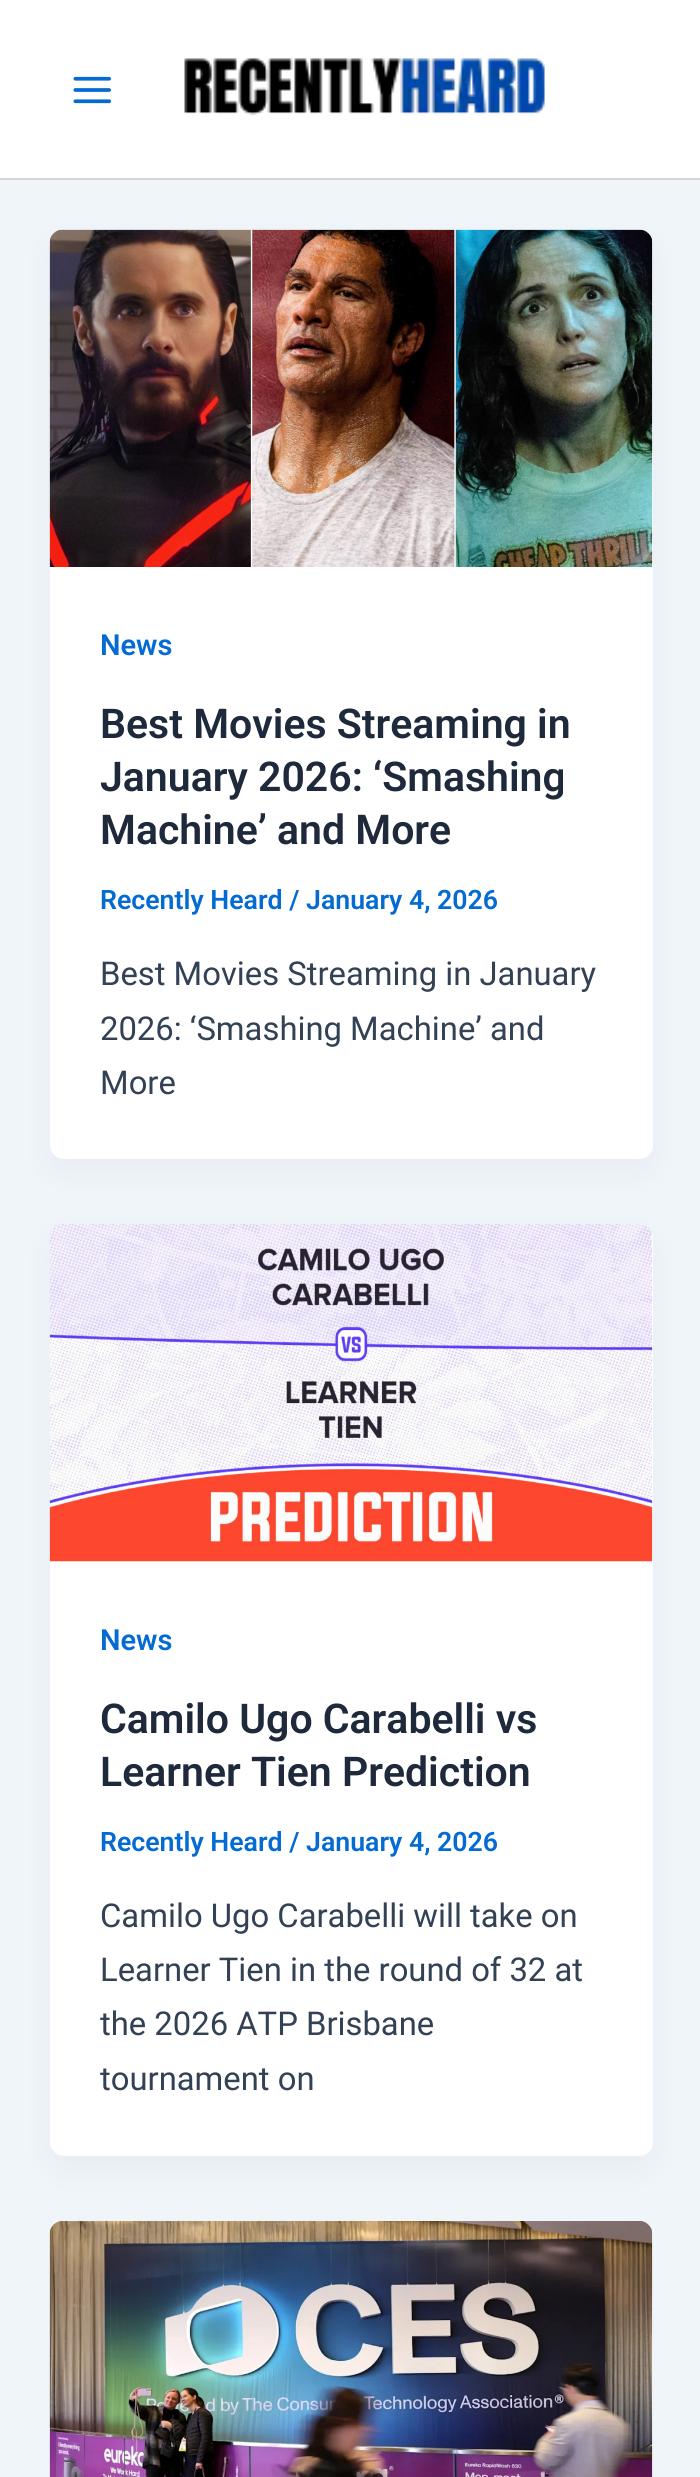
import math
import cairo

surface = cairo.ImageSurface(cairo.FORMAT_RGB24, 700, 2477)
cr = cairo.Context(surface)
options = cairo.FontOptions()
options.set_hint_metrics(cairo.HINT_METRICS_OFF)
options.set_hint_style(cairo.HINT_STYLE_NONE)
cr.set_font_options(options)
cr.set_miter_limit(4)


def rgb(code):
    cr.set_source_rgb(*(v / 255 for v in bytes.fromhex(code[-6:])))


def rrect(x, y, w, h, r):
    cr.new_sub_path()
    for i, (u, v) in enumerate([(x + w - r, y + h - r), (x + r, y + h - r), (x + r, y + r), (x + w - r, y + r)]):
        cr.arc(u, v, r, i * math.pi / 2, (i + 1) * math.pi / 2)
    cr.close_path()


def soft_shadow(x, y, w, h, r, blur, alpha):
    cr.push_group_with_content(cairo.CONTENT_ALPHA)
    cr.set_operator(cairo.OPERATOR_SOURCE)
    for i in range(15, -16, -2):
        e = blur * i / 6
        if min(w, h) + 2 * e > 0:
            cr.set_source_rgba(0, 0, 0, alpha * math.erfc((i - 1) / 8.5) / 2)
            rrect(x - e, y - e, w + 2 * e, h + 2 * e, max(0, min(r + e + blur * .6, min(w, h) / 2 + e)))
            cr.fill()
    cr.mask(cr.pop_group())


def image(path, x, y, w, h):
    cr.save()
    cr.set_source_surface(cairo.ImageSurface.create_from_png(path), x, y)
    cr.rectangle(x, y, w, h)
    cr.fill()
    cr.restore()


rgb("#f0f5fa")
cr.paint()
rgb("#ffffff")
cr.rectangle(0, 0, 700, 178)
cr.fill()
rgb("#d1d5db")
cr.rectangle(0, 178, 700, 2)
cr.fill()
image("img/1.png", 73, 76, 38, 28)
image("img/2.png", 184, 58, 361, 58)
rgb("#101828")
soft_shadow(54, 248, 594, 920, 9, 17, 0.05)
rgb("#ffffff")
rrect(50, 230, 603, 929, 14)
cr.fill()
image("img/3.png", 49, 229, 604, 338)
rgb("#101828")
soft_shadow(54, 1242, 594, 923, 9, 17, 0.05)
rgb("#ffffff")
rrect(50, 1224, 603, 932, 14)
cr.fill()
image("img/4.png", 49, 1224, 604, 338)
rrect(50, 2221, 603, 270, 14)
cr.fill()
image("img/5.png", 49, 2221, 604, 256)
cr.select_font_face("Roboto SemiBold")
cr.set_font_size(29)
rgb("#046bd2")
cr.move_to(100, 655)
cr.show_text("News")
cr.set_font_size(41)
rgb("#1e293b")
for x, y, s in [
    (100, 738, "Best Movies Streaming in"),
    (100, 791, "January 2026: ‘Smashing"),
    (100, 844, "Machine’ and More"),
]:
    cr.move_to(x, y)
    cr.show_text(s)
cr.set_font_size(26.7)
rgb("#046bd2")
cr.move_to(100, 909)
cr.show_text("Recently Heard / January 4, 2026")
cr.select_font_face("Roboto")
cr.set_font_size(32.8)
rgb("#334155")
for x, y, s in [
    (100, 985, "Best Movies Streaming in January"),
    (100, 1040, "2026: ‘Smashing Machine’ and"),
    (100, 1094, "More"),
]:
    cr.move_to(x, y)
    cr.show_text(s)
cr.select_font_face("Roboto SemiBold")
cr.set_font_size(29)
rgb("#046bd2")
cr.move_to(100, 1650)
cr.show_text("News")
cr.set_font_size(41)
rgb("#1e293b")
cr.move_to(100, 1733)
cr.show_text("Camilo Ugo Carabelli vs")
cr.move_to(100, 1786)
cr.show_text("Learner Tien Prediction")
cr.set_font_size(26.7)
rgb("#046bd2")
cr.move_to(100, 1851)
cr.show_text("Recently Heard / January 4, 2026")
cr.select_font_face("Roboto")
cr.set_font_size(32.8)
rgb("#334155")
for x, y, s in [
    (100, 1927, "Camilo Ugo Carabelli will take on"),
    (100, 1981, "Learner Tien in the round of 32 at"),
    (100, 2035, "the 2026 ATP Brisbane"),
    (100, 2090, "tournament on"),
]:
    cr.move_to(x, y)
    cr.show_text(s)
surface.write_to_png("page.png")
